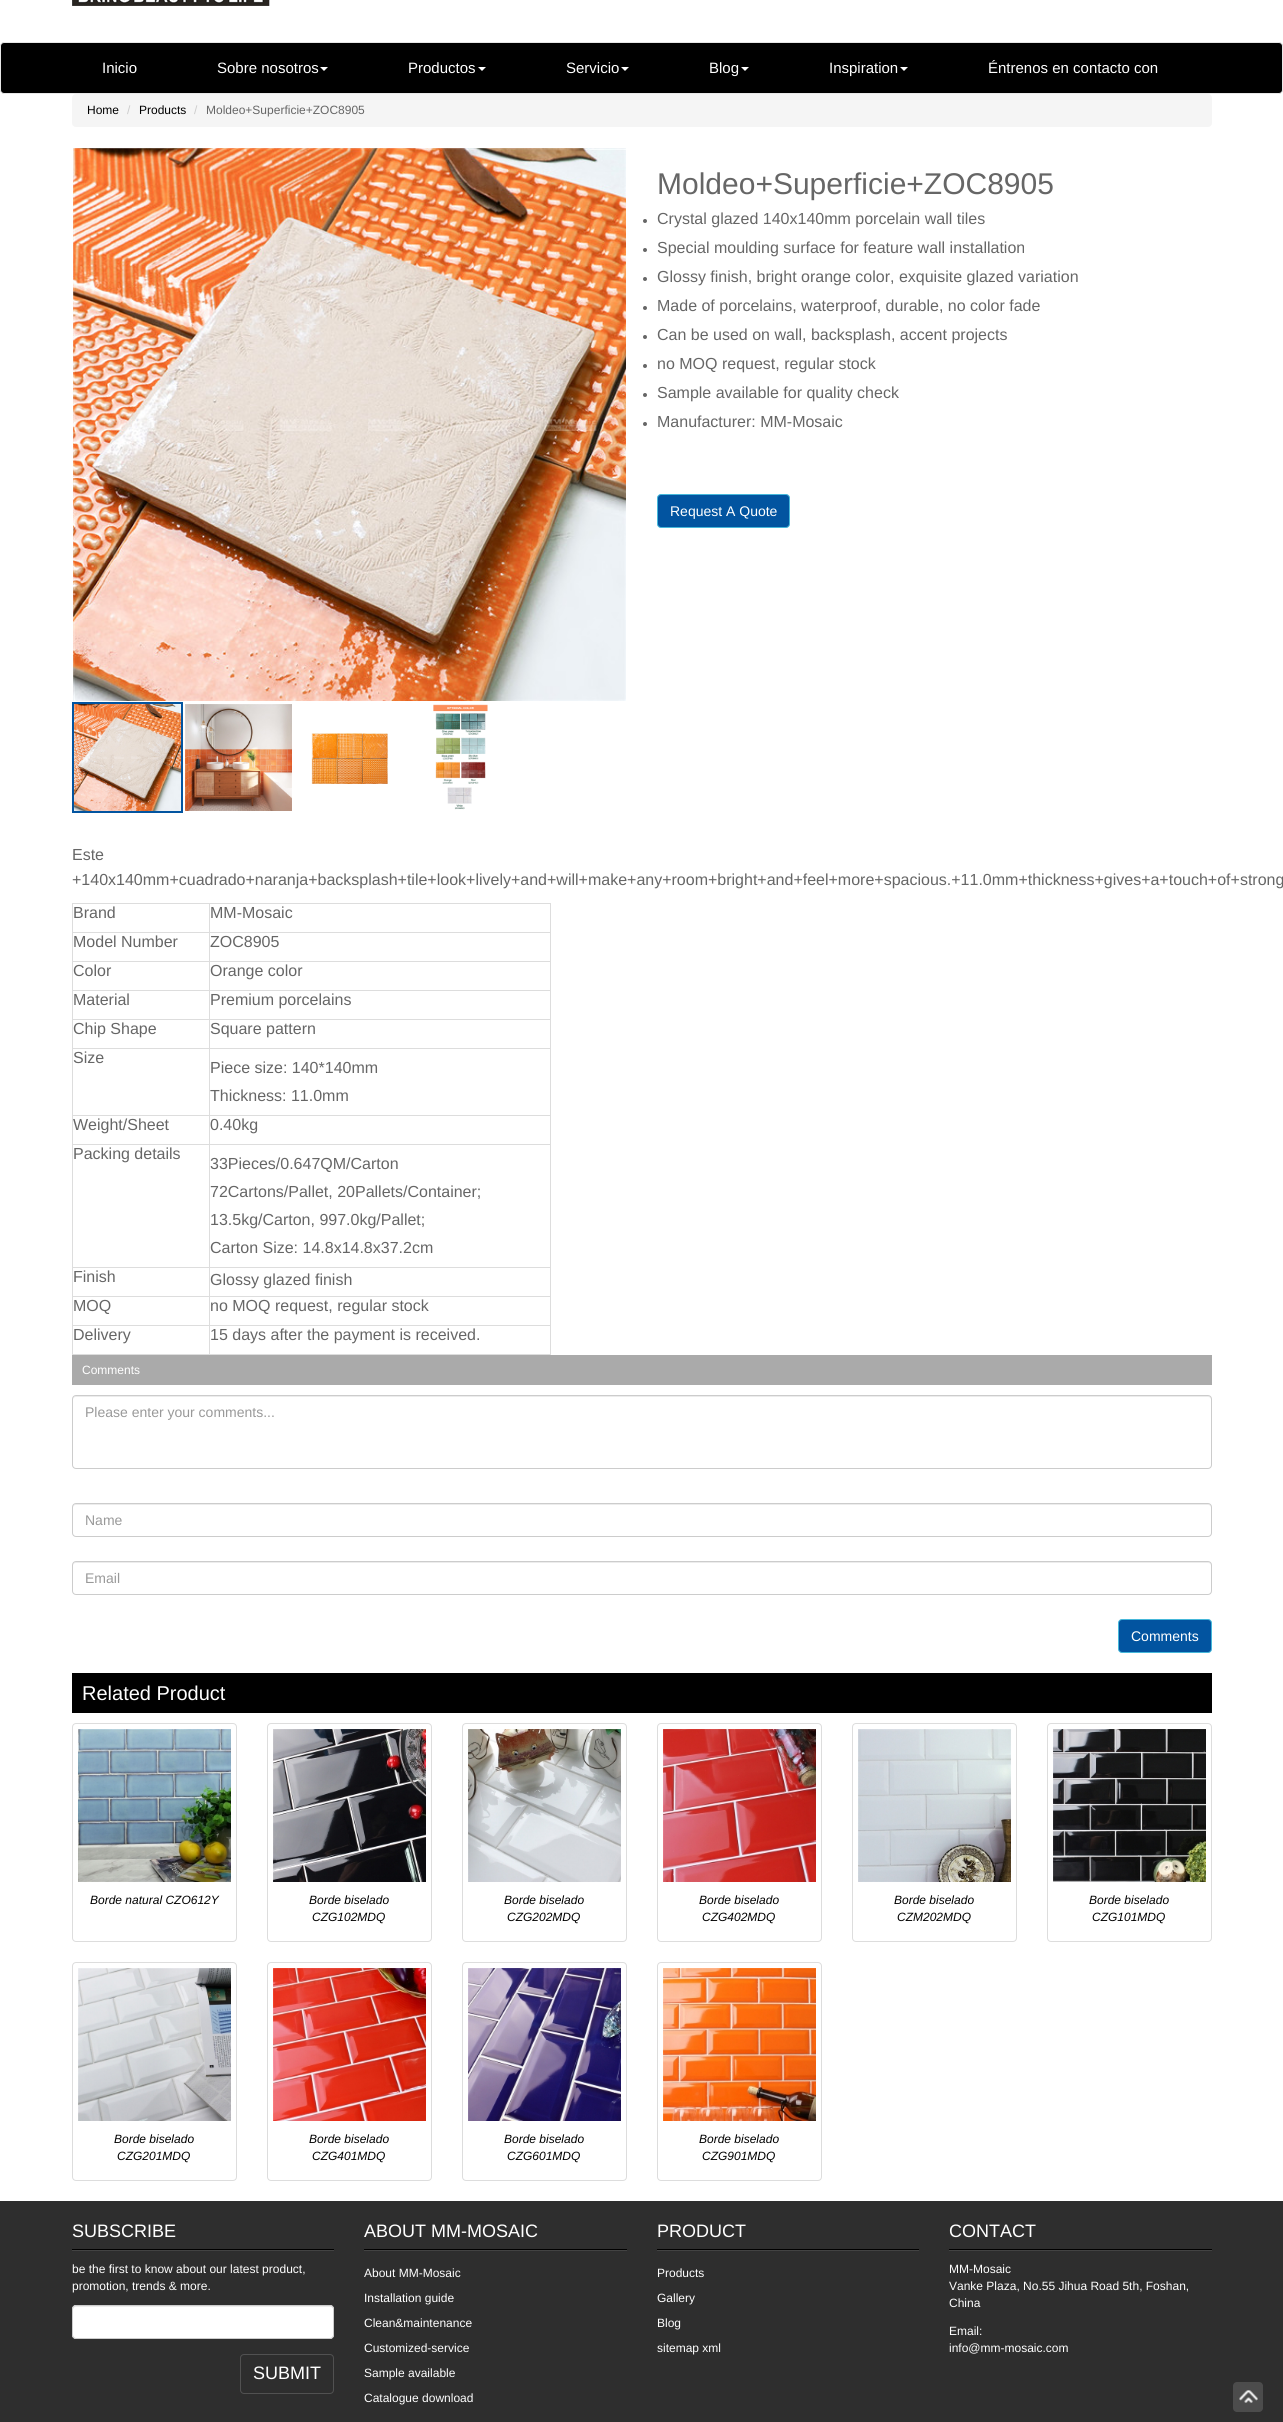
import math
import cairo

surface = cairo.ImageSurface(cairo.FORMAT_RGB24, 1283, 2422)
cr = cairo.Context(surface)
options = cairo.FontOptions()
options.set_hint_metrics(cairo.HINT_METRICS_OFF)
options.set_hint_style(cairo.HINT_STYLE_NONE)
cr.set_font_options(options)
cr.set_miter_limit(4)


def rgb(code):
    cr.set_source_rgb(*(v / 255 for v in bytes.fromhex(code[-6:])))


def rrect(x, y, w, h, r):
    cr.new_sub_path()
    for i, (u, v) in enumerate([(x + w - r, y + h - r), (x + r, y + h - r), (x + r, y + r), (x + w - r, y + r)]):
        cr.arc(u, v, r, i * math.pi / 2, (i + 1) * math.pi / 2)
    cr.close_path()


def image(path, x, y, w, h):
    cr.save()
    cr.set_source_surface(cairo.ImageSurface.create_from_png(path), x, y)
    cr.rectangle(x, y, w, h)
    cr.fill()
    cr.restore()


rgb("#ffffff")
cr.paint()
image("img/1.png", 72, 0, 198, 6)
rgb("#000000")
rrect(0.5, 42.5, 1282, 51, 3.5)
cr.fill_preserve()
rgb("#e7e7e7")
cr.set_line_width(1)
cr.stroke()
rgb("#ffffff")
cr.new_path()
cr.move_to(320, 67)
cr.line_to(328, 67)
cr.line_to(324, 71)
cr.close_path()
cr.fill()
cr.new_path()
cr.move_to(478, 67)
cr.line_to(486, 67)
cr.line_to(482, 71)
cr.close_path()
cr.fill()
cr.new_path()
cr.move_to(621, 67)
cr.line_to(629, 67)
cr.line_to(625, 71)
cr.close_path()
cr.fill()
cr.new_path()
cr.move_to(741, 67)
cr.line_to(749, 67)
cr.line_to(745, 71)
cr.close_path()
cr.fill()
cr.new_path()
cr.move_to(900, 67)
cr.line_to(908, 67)
cr.line_to(904, 71)
cr.close_path()
cr.fill()
rgb("#f5f5f5")
rrect(72, 94, 1140, 33, 4)
cr.fill()
image("img/2.png", 73, 148, 553, 553)
cr.rectangle(73, 703, 109, 109)
rgb("#0254a0")
cr.set_line_width(2)
cr.stroke()
image("img/3.png", 74, 704, 107, 107)
image("img/4.png", 185, 704, 107, 107)
image("img/5.png", 311, 733, 77, 51)
image("img/6.png", 433, 704, 55, 106)
rgb("#666666")
cr.arc(645, 221, 2, 0, 2 * math.pi)
cr.fill()
cr.arc(645, 250, 2, 0, 2 * math.pi)
cr.fill()
cr.arc(645, 279, 2, 0, 2 * math.pi)
cr.fill()
cr.arc(645, 308, 2, 0, 2 * math.pi)
cr.fill()
cr.arc(645, 337, 2, 0, 2 * math.pi)
cr.fill()
cr.arc(645, 366, 2, 0, 2 * math.pi)
cr.fill()
cr.arc(645, 395, 2, 0, 2 * math.pi)
cr.fill()
cr.arc(645, 424, 2, 0, 2 * math.pi)
cr.fill()
rgb("#0254a0")
rrect(657.5, 494.5, 132, 33, 3.5)
cr.fill_preserve()
rgb("#46b8da")
cr.set_line_width(1)
cr.stroke()
for x, y, w, h, color in [
    (72, 903, 479, 1, "#dddddd"),
    (550, 903, 1, 452, "#dddddd"),
    (72, 1354, 479, 1, "#dddddd"),
    (72, 903, 1, 452, "#dddddd"),
    (209, 932, 342, 1, "#dddddd"),
    (209, 961, 342, 1, "#dddddd"),
    (209, 990, 342, 1, "#dddddd"),
    (209, 1019, 342, 1, "#dddddd"),
    (209, 1048, 342, 1, "#dddddd"),
    (209, 1115, 342, 1, "#dddddd"),
    (209, 1144, 342, 1, "#dddddd"),
    (209, 1267, 342, 1, "#dddddd"),
    (209, 1296, 342, 1, "#dddddd"),
    (209, 1325, 342, 1, "#dddddd"),
    (209, 1325, 1, 30, "#dddddd"),
    (72, 1325, 138, 1, "#dddddd"),
    (209, 1296, 1, 30, "#dddddd"),
    (72, 1296, 138, 1, "#dddddd"),
    (209, 1267, 1, 30, "#dddddd"),
    (72, 1267, 138, 1, "#dddddd"),
    (209, 1144, 1, 124, "#dddddd"),
    (72, 1144, 138, 1, "#dddddd"),
    (209, 1115, 1, 30, "#dddddd"),
    (72, 1115, 138, 1, "#dddddd"),
    (209, 1048, 1, 68, "#dddddd"),
    (72, 1048, 138, 1, "#dddddd"),
    (209, 1019, 1, 30, "#dddddd"),
    (72, 1019, 138, 1, "#dddddd"),
    (209, 990, 1, 30, "#dddddd"),
    (72, 990, 138, 1, "#dddddd"),
    (209, 961, 1, 30, "#dddddd"),
    (72, 961, 138, 1, "#dddddd"),
    (209, 932, 1, 30, "#dddddd"),
    (72, 932, 138, 1, "#dddddd"),
    (209, 903, 1, 30, "#dddddd"),
    (72, 1355, 1140, 30, "#aaaaaa"),
]:
    rgb(color)
    cr.rectangle(x, y, w, h)
    cr.fill()
rgb("#ececec")
cr.new_path()
cr.move_to(76, 1397)
cr.line_to(1208, 1397)
cr.curve_to(1210, 1397, 1211, 1398, 1211, 1400)
cr.line_to(1211, 1399)
cr.curve_to(1211, 1397, 1210, 1396, 1208, 1396)
cr.line_to(76, 1396)
cr.curve_to(74, 1396, 73, 1397, 73, 1399)
cr.line_to(73, 1400)
cr.curve_to(73, 1398, 74, 1397, 76, 1397)
cr.close_path()
cr.fill()
rrect(72.5, 1395.5, 1139, 73, 3.5)
rgb("#cccccc")
cr.stroke()
rgb("#ececec")
cr.new_path()
cr.move_to(76, 1505)
cr.line_to(1208, 1505)
cr.curve_to(1210, 1505, 1211, 1506, 1211, 1508)
cr.line_to(1211, 1507)
cr.curve_to(1211, 1505, 1210, 1504, 1208, 1504)
cr.line_to(76, 1504)
cr.curve_to(74, 1504, 73, 1505, 73, 1507)
cr.line_to(73, 1508)
cr.curve_to(73, 1506, 74, 1505, 76, 1505)
cr.close_path()
cr.fill()
rrect(72.5, 1503.5, 1139, 33, 3.5)
rgb("#cccccc")
cr.stroke()
rgb("#ececec")
cr.new_path()
cr.move_to(76, 1563)
cr.line_to(1208, 1563)
cr.curve_to(1210, 1563, 1211, 1564, 1211, 1566)
cr.line_to(1211, 1565)
cr.curve_to(1211, 1563, 1210, 1562, 1208, 1562)
cr.line_to(76, 1562)
cr.curve_to(74, 1562, 73, 1563, 73, 1565)
cr.line_to(73, 1566)
cr.curve_to(73, 1564, 74, 1563, 76, 1563)
cr.close_path()
cr.fill()
rrect(72.5, 1561.5, 1139, 33, 3.5)
rgb("#cccccc")
cr.stroke()
rgb("#0254a0")
rrect(1118.5, 1619.5, 93, 33, 3.5)
cr.fill_preserve()
rgb("#46b8da")
cr.stroke()
rgb("#000000")
cr.rectangle(72, 1673, 1140, 40)
cr.fill()
rrect(72.5, 1723.5, 164, 218, 3.5)
rgb("#dddddd")
cr.stroke()
image("img/7.png", 78, 1729, 153, 153)
rrect(267.5, 1723.5, 164, 218, 3.5)
cr.stroke()
image("img/8.png", 273, 1729, 153, 153)
rrect(462.5, 1723.5, 164, 218, 3.5)
cr.stroke()
image("img/9.png", 468, 1729, 153, 153)
rrect(657.5, 1723.5, 164, 218, 3.5)
cr.stroke()
image("img/10.png", 663, 1729, 153, 153)
rrect(852.5, 1723.5, 164, 218, 3.5)
cr.stroke()
image("img/11.png", 858, 1729, 153, 153)
rrect(1047.5, 1723.5, 164, 218, 3.5)
cr.stroke()
image("img/12.png", 1053, 1729, 153, 153)
rrect(72.5, 1962.5, 164, 218, 3.5)
cr.stroke()
image("img/13.png", 78, 1968, 153, 153)
rrect(267.5, 1962.5, 164, 218, 3.5)
cr.stroke()
image("img/14.png", 273, 1968, 153, 153)
rrect(462.5, 1962.5, 164, 218, 3.5)
cr.stroke()
image("img/15.png", 468, 1968, 153, 153)
rrect(657.5, 1962.5, 164, 218, 3.5)
cr.stroke()
image("img/16.png", 663, 1968, 153, 153)
rgb("#2e2e2e")
cr.rectangle(0, 2201, 1283, 221)
cr.fill()
image("img/17.png", 72, 2249, 262, 2)
rgb("#ffffff")
rrect(72, 2305, 262, 34, 4)
cr.fill()
rgb("#ececec")
cr.new_path()
cr.move_to(76, 2307)
cr.line_to(331, 2307)
cr.line_to(333, 2308)
cr.line_to(333, 2310)
cr.line_to(333, 2309)
cr.curve_to(333, 2307, 332, 2306, 330, 2306)
cr.line_to(76, 2306)
cr.curve_to(74, 2306, 73, 2307, 73, 2309)
cr.line_to(73, 2310)
cr.curve_to(73, 2308, 74, 2307, 76, 2307)
cr.close_path()
cr.fill()
rrect(72.5, 2305.5, 261, 33, 3.5)
rgb("#cccccc")
cr.stroke()
rrect(240.5, 2354.5, 93, 39, 3.5)
rgb("#515151")
cr.stroke()
image("img/18.png", 364, 2249, 263, 2)
image("img/17.png", 657, 2249, 262, 2)
image("img/18.png", 949, 2249, 263, 2)
rgb("#4c4c4c")
rrect(1233, 2382, 30, 30, 4)
cr.fill()
image("img/19.png", 1239, 2390, 19, 13)
cr.select_font_face("Liberation Sans")
cr.set_font_size(15)
rgb("#ffffff")
for x, y, s in [
    (102, 73, "Inicio"),
    (217, 73, "Sobre nosotros"),
    (408, 73, "Productos"),
    (566, 73, "Servicio"),
    (709, 73, "Blog"),
    (829, 73, "Inspiration"),
    (988, 73, "Éntrenos en contacto con"),
]:
    cr.move_to(x, y)
    cr.show_text(s)
cr.set_font_size(12)
rgb("#000000")
cr.move_to(87, 114)
cr.show_text("Home")
rgb("#cccccc")
cr.move_to(127, 114)
cr.show_text("/")
rgb("#000000")
cr.move_to(139, 114)
cr.show_text("Products")
rgb("#cccccc")
cr.move_to(194, 114)
cr.show_text("/")
rgb("#666666")
cr.move_to(206, 114)
cr.show_text("Moldeo+Superficie+ZOC8905")
cr.set_font_size(30)
cr.move_to(657, 194)
cr.show_text("Moldeo+Superficie+ZOC8905")
cr.set_font_size(16)
for x, y, s in [
    (657, 224, "Crystal glazed 140x140mm porcelain wall tiles"),
    (657, 253, "Special moulding surface for feature wall installation"),
    (657, 282, "Glossy finish, bright orange color, exquisite glazed variation"),
    (657, 311, "Made of porcelains, waterproof, durable, no color fade"),
    (657, 340, "Can be used on wall, backsplash, accent projects"),
    (657, 369, "no MOQ request, regular stock"),
    (657, 398, "Sample available for quality check"),
    (657, 427, "Manufacturer: MM-Mosaic"),
]:
    cr.move_to(x, y)
    cr.show_text(s)
cr.set_font_size(14)
rgb("#ffffff")
cr.move_to(670, 516)
cr.show_text("Request A Quote")
cr.set_font_size(16)
rgb("#666666")
for x, y, s in [
    (72, 860, "Este"),
    (72, 885, "+140x140mm+cuadrado+naranja+backsplash+tile+look+lively+and+will+make+any+room+bright+and+feel+more+spacious.+11.0mm+thickness+gives+a+touch+of+strong"),
    (73, 918, "Brand"),
    (210, 918, "MM-Mosaic"),
    (73, 947, "Model Number"),
    (210, 947, "ZOC8905"),
    (73, 976, "Color"),
    (210, 976, "Orange color"),
    (73, 1005, "Material"),
    (210, 1005, "Premium porcelains"),
    (73, 1034, "Chip Shape"),
    (210, 1034, "Square pattern"),
    (73, 1063, "Size"),
    (210, 1073, "Piece size: 140*140mm"),
    (210, 1101, "Thickness: 11.0mm"),
    (73, 1130, "Weight/Sheet"),
    (210, 1130, "0.40kg"),
    (73, 1159, "Packing details"),
    (210, 1169, "33Pieces/0.647QM/Carton"),
    (210, 1197, "72Cartons/Pallet, 20Pallets/Container;"),
    (210, 1225, "13.5kg/Carton, 997.0kg/Pallet;"),
    (210, 1253, "Carton Size: 14.8x14.8x37.2cm"),
    (73, 1282, "Finish"),
    (210, 1285, "Glossy glazed finish"),
    (73, 1311, "MOQ"),
    (210, 1311, "no MOQ request, regular stock"),
    (73, 1340, "Delivery"),
    (210, 1340, "15 days after the payment is received."),
]:
    cr.move_to(x, y)
    cr.show_text(s)
cr.set_font_size(12)
rgb("#ffffff")
cr.move_to(82, 1374)
cr.show_text("Comments")
cr.set_font_size(14)
rgb("#999999")
for x, y, s in [
    (85, 1417, "Please enter your comments..."),
    (85, 1525, "Name"),
    (85, 1583, "Email"),
]:
    cr.move_to(x, y)
    cr.show_text(s)
rgb("#ffffff")
cr.move_to(1131, 1641)
cr.show_text("Comments")
cr.set_font_size(20)
cr.move_to(82, 1700)
cr.show_text("Related Product")
cr.select_font_face("Liberation Sans", cairo.FONT_SLANT_ITALIC)
cr.set_font_size(12)
rgb("#000000")
for x, y, s in [
    (90, 1904, "Borde natural CZO612Y"),
    (309, 1904, "Borde biselado"),
    (312, 1921, "CZG102MDQ"),
    (504, 1904, "Borde biselado"),
    (507, 1921, "CZG202MDQ"),
    (699, 1904, "Borde biselado"),
    (702, 1921, "CZG402MDQ"),
    (894, 1904, "Borde biselado"),
    (897, 1921, "CZM202MDQ"),
    (1089, 1904, "Borde biselado"),
    (1092, 1921, "CZG101MDQ"),
    (114, 2143, "Borde biselado"),
    (117, 2160, "CZG201MDQ"),
    (309, 2143, "Borde biselado"),
    (312, 2160, "CZG401MDQ"),
    (504, 2143, "Borde biselado"),
    (507, 2160, "CZG601MDQ"),
    (699, 2143, "Borde biselado"),
    (702, 2160, "CZG901MDQ"),
]:
    cr.move_to(x, y)
    cr.show_text(s)
cr.select_font_face("Liberation Sans")
cr.set_font_size(18)
rgb("#ffffff")
cr.move_to(72, 2237)
cr.show_text("SUBSCRIBE")
cr.set_font_size(12)
cr.move_to(72, 2273)
cr.show_text("be the first to know about our latest product,")
cr.move_to(72, 2290)
cr.show_text("promotion, trends & more.")
cr.set_font_size(18)
cr.move_to(253, 2379)
cr.show_text("SUBMIT")
cr.move_to(364, 2237)
cr.show_text("ABOUT MM-MOSAIC")
cr.set_font_size(12)
for x, y, s in [
    (364, 2277, "About MM-Mosaic"),
    (364, 2302, "Installation guide"),
    (364, 2327, "Clean&maintenance"),
    (364, 2352, "Customized-service"),
    (364, 2377, "Sample available"),
    (364, 2402, "Catalogue download"),
]:
    cr.move_to(x, y)
    cr.show_text(s)
cr.set_font_size(18)
cr.move_to(657, 2237)
cr.show_text("PRODUCT")
cr.set_font_size(12)
for x, y, s in [
    (657, 2277, "Products"),
    (657, 2302, "Gallery"),
    (657, 2327, "Blog"),
    (657, 2352, "sitemap xml"),
]:
    cr.move_to(x, y)
    cr.show_text(s)
cr.set_font_size(18)
cr.move_to(949, 2237)
cr.show_text("CONTACT")
cr.set_font_size(12)
for x, y, s in [
    (949, 2273, "MM-Mosaic"),
    (949, 2290, "Vanke Plaza, No.55 Jihua Road 5th, Foshan,"),
    (949, 2307, "China"),
    (949, 2335, "Email:"),
    (949, 2352, "info@mm-mosaic.com"),
]:
    cr.move_to(x, y)
    cr.show_text(s)
surface.write_to_png("page.png")
